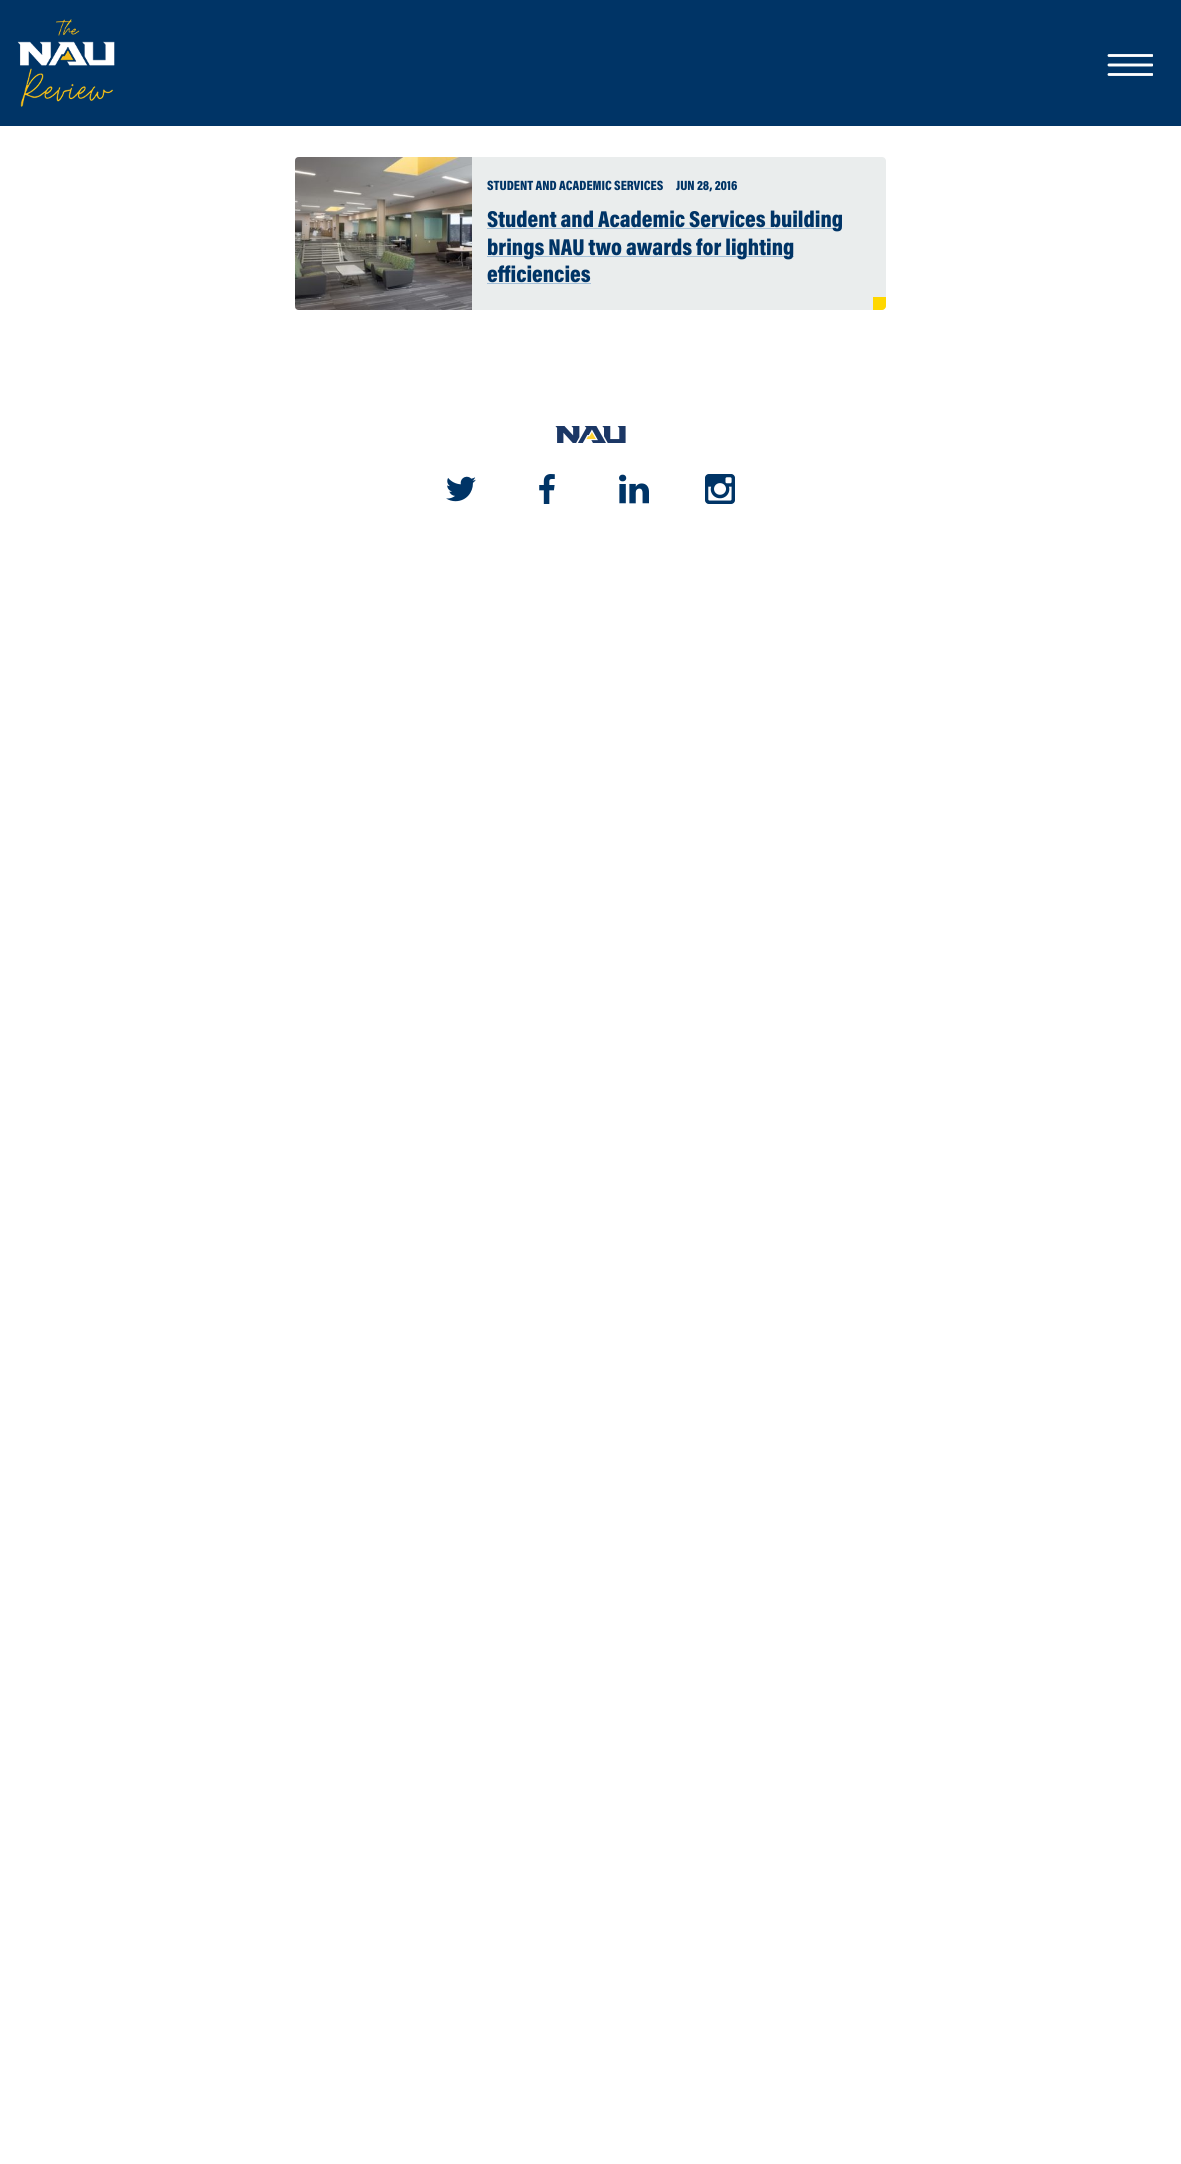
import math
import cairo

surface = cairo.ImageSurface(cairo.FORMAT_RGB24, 1181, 2164)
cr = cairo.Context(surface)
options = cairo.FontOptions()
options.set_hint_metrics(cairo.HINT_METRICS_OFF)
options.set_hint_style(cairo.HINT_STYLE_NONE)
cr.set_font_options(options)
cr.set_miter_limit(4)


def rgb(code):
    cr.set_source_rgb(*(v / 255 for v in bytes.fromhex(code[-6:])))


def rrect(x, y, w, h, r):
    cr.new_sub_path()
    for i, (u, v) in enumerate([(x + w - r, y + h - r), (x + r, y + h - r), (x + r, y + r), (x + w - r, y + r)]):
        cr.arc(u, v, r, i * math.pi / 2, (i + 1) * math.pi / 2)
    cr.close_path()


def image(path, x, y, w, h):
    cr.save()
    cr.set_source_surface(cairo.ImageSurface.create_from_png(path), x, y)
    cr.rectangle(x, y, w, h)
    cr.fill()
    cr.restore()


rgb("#ffffff")
cr.paint()
rgb("#003466")
cr.rectangle(0, 0, 1181, 126)
cr.fill()
image("img/1.png", 17, 19, 98, 88)
cr.save()
cr.rectangle(1105, 51, 48, 32)
cr.clip()
cr.new_path()
cr.move_to(1109, 55.5)
cr.line_to(1152, 55.5)
cr.move_to(1109, 65)
cr.line_to(1152, 65)
cr.move_to(1109, 74.5)
cr.line_to(1152, 74.5)
rgb("#ffffff")
cr.set_line_width(2.9)
cr.set_line_cap(cairo.LINE_CAP_ROUND)
cr.stroke()
cr.restore()
rgb("#eaeded")
rrect(295, 157, 591, 153, 4)
cr.fill()
image("img/2.png", 295, 157, 177, 153)
for x, y, w, h, color in [
    (487, 228, 355, 1, "#a4c0d9"),
    (487, 256, 307, 1, "#a4c0d9"),
    (487, 283, 104, 1, "#a4c0d9"),
]:
    rgb(color)
    cr.rectangle(x, y, w, h)
    cr.fill()
rgb("#ffd700")
cr.new_path()
cr.move_to(873, 297)
cr.line_to(886, 297)
cr.line_to(886, 306)
cr.curve_to(886, 308, 884, 310, 882, 310)
cr.line_to(873, 310)
cr.close_path()
cr.fill()
image("img/3.png", 555, 426, 71, 17)
image("img/4.png", 446, 476, 30, 26)
image("img/5.png", 539, 474, 16, 30)
image("img/6.png", 619, 474, 30, 30)
image("img/7.png", 705, 474, 30, 30)
cr.select_font_face("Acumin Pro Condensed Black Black")
cr.set_font_size(13.6)
rgb("#003466")
cr.move_to(487, 190)
cr.show_text("STUDENT AND ACADEMIC SERVICES")
cr.move_to(676, 190)
cr.show_text("JUN 28, 2016")
cr.set_font_size(23.25)
for x, y, s in [
    (487, 227, "Student and Academic Services building"),
    (487, 255, "brings NAU two awards for lighting"),
    (487, 282, "efficiencies"),
]:
    cr.move_to(x, y)
    cr.show_text(s)
surface.write_to_png("page.png")
